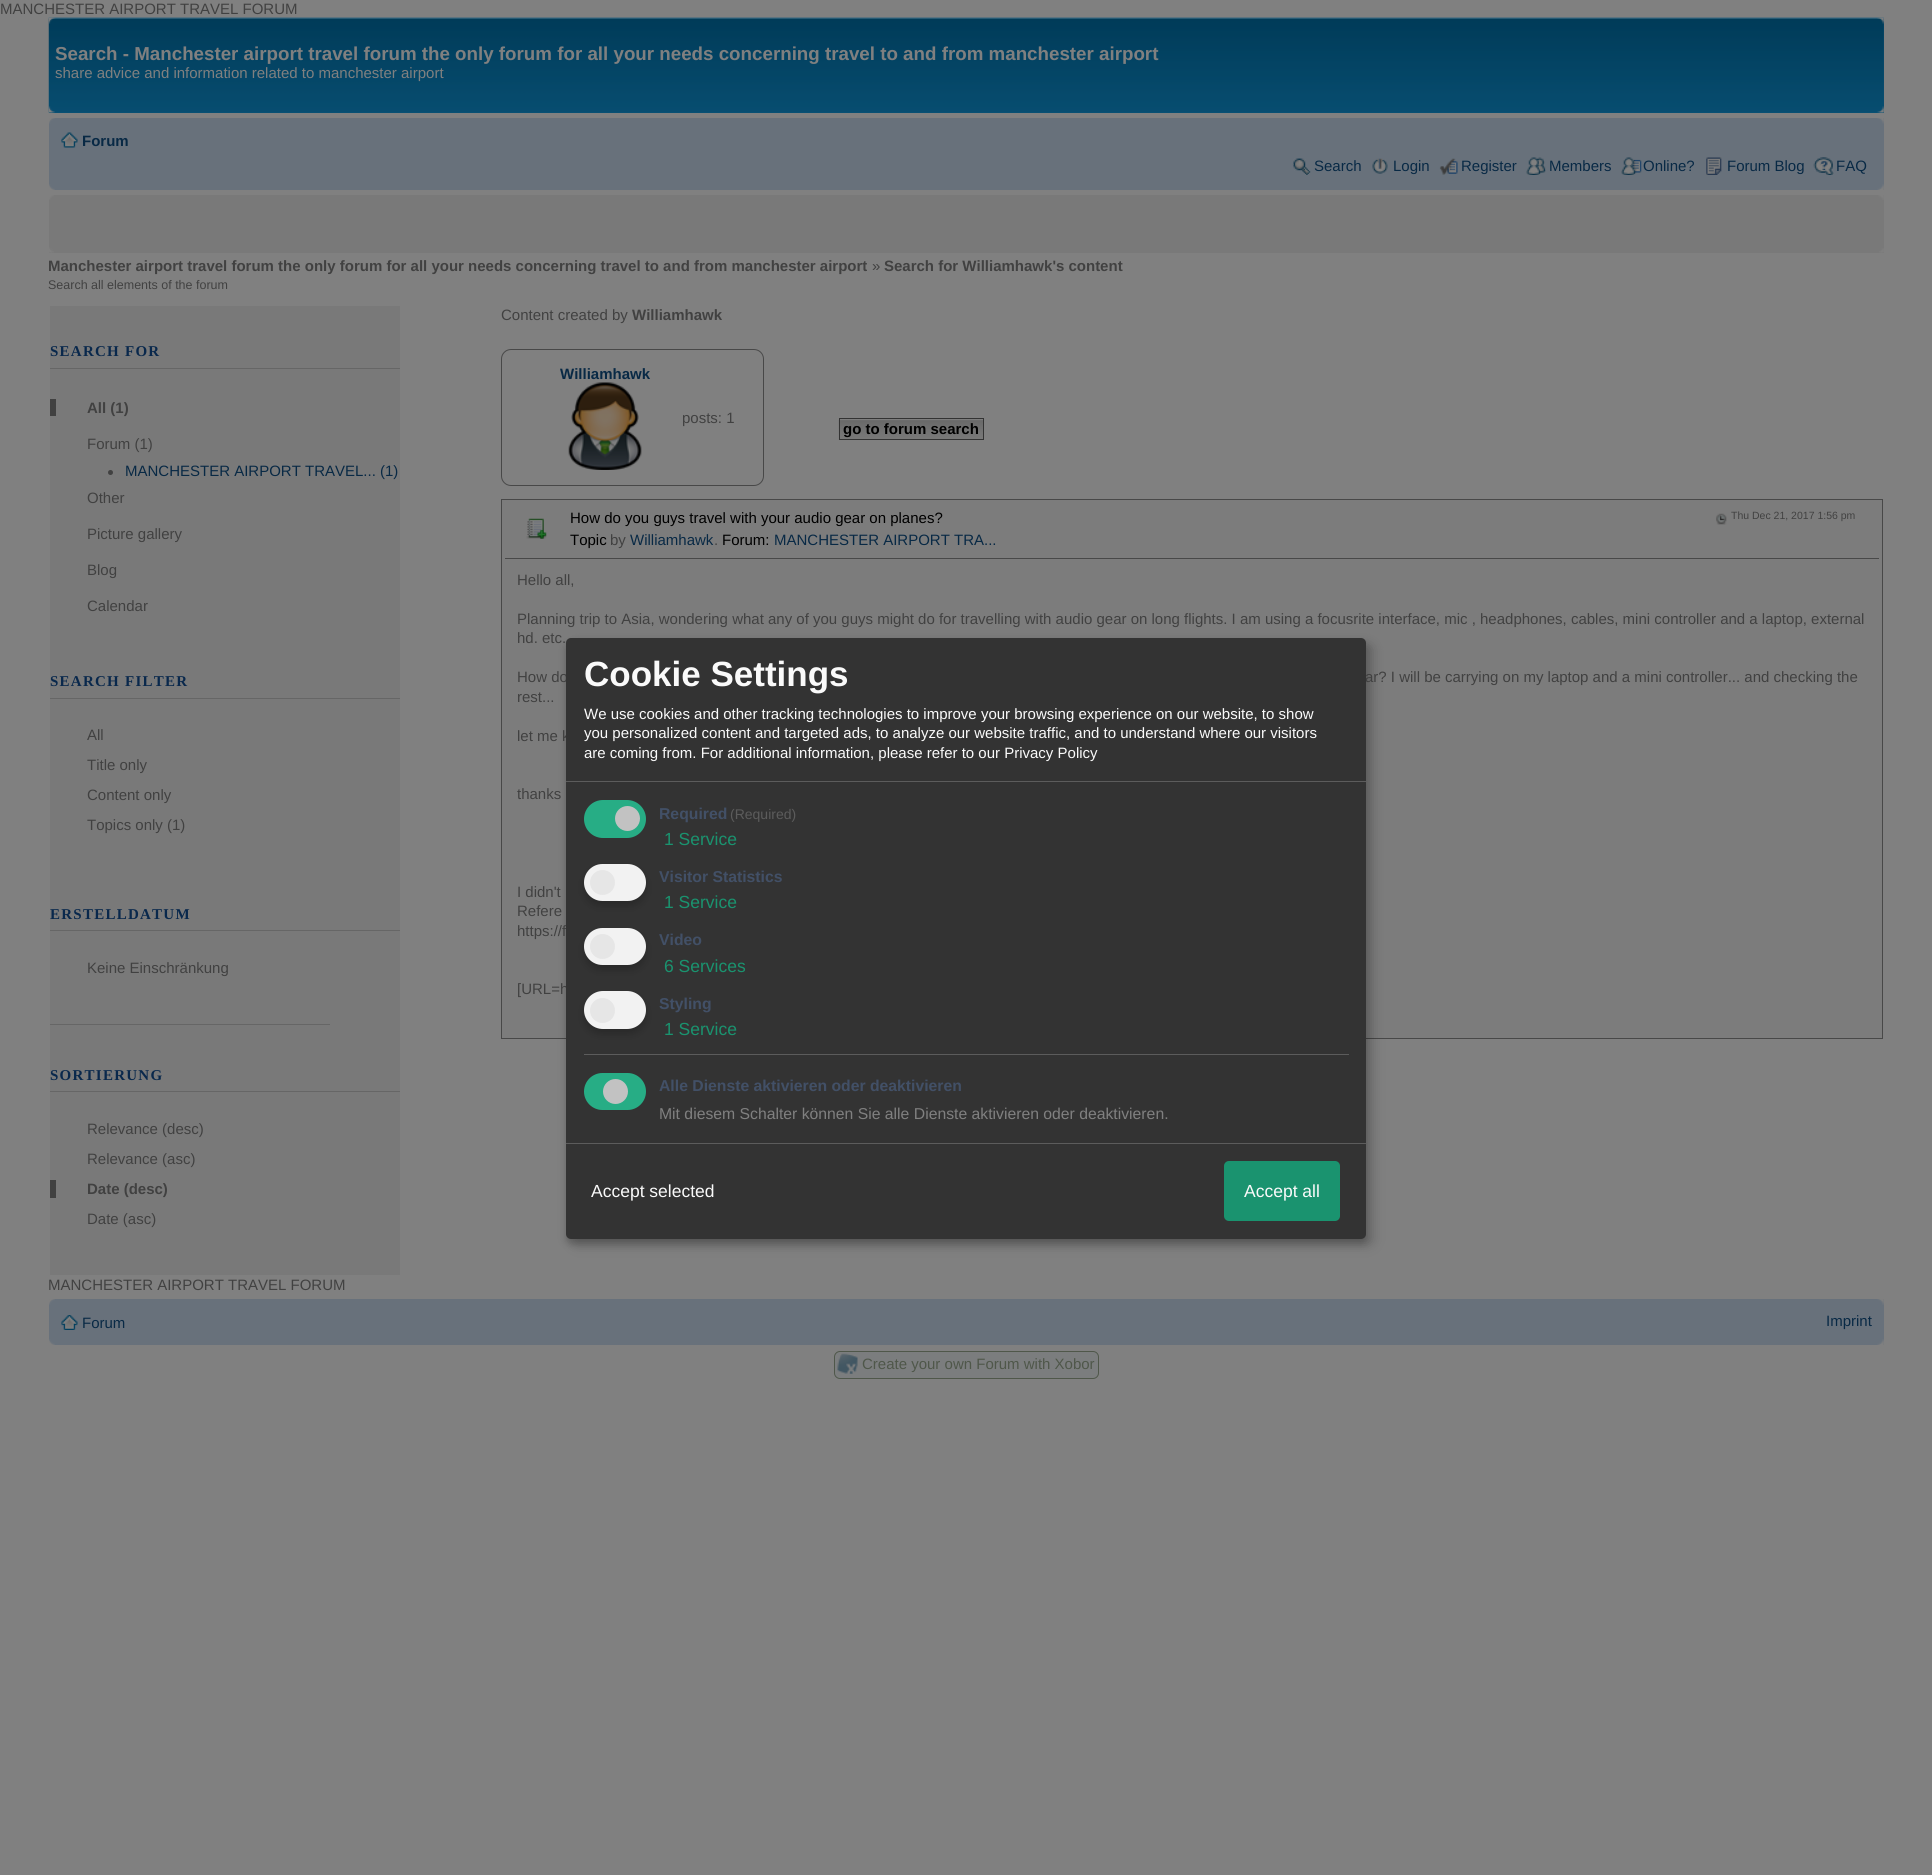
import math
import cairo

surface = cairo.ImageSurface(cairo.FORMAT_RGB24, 1932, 1875)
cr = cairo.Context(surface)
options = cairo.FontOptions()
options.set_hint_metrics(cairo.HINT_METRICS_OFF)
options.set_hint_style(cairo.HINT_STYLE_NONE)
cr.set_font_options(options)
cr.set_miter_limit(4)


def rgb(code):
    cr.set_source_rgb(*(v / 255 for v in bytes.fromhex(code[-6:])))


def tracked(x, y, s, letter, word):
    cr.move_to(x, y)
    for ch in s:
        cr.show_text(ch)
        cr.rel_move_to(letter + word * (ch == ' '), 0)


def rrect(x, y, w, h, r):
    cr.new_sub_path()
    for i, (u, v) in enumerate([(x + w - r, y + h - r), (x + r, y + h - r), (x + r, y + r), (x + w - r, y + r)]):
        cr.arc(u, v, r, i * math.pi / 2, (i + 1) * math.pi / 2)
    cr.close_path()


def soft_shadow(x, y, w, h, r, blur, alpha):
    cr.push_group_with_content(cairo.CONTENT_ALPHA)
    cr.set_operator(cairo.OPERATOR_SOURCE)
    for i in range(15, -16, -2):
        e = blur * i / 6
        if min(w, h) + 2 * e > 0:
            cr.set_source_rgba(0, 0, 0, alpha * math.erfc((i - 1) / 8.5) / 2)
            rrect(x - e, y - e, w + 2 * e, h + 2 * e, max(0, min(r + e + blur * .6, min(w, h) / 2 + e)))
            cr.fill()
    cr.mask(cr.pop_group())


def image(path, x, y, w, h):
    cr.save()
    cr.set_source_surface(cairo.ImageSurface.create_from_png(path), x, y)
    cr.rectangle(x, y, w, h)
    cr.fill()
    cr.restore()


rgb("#808080")
cr.paint()
rgb("#095276")
cr.rectangle(49, 18, 1835, 95)
cr.fill()
image("img/1.png", 48, 17, 1836, 96)
image("img/2.png", 48, 17, 8, 7)
image("img/3.png", 1877, 17, 7, 7)
image("img/4.png", 48, 106, 7, 7)
image("img/5.png", 1877, 106, 7, 7)
rgb("#68717b")
cr.rectangle(49, 118, 1835, 72)
cr.fill()
image("img/6.png", 49, 118, 6, 6)
image("img/7.png", 1877, 118, 7, 6)
image("img/8.png", 61, 132, 17, 16)
image("img/9.png", 1526, 157, 20, 18)
image("img/10.png", 1621, 157, 21, 18)
image("img/11.png", 1706, 157, 16, 18)
image("img/12.png", 1813, 157, 21, 18)
image("img/13.png", 1292, 158, 19, 17)
image("img/14.png", 1813, 157, 21, 18)
image("img/15.png", 1293, 158, 18, 17)
image("img/16.png", 1372, 158, 16, 16)
image("img/17.png", 1439, 158, 19, 17)
image("img/18.png", 49, 184, 6, 6)
image("img/19.png", 1877, 184, 7, 6)
rgb("#797979")
cr.rectangle(49, 195, 1835, 58)
cr.fill()
image("img/20.png", 49, 195, 5, 5)
image("img/21.png", 1878, 195, 6, 5)
image("img/22.png", 49, 247, 5, 6)
image("img/23.png", 1879, 248, 5, 5)
for x, y, w, h, color in [
    (50, 306, 350, 969, "#797979"),
    (50, 368, 350, 1, "#666666"),
    (50, 399, 6, 17, "#414141"),
]:
    rgb(color)
    cr.rectangle(x, y, w, h)
    cr.fill()
cr.arc(110.5, 472.5, 2.5, 0, 2 * math.pi)
cr.fill()
for x, y, w, h, color in [
    (50, 698, 350, 1, "#666666"),
    (50, 930, 350, 1, "#666666"),
    (50, 1024, 280, 1, "#666666"),
    (50, 1091, 350, 1, "#666666"),
    (50, 1180, 6, 18, "#414141"),
]:
    rgb(color)
    cr.rectangle(x, y, w, h)
    cr.fill()
rrect(501.5, 349.5, 262, 136, 9.5)
rgb("#484848")
cr.set_line_width(1)
cr.stroke()
image("img/24.png", 568, 382, 74, 88)
rgb("#7d7d7d")
cr.rectangle(840, 419, 143, 1)
cr.fill()
image("img/25.png", 838, 420, 145, 20)
cr.rectangle(839.5, 418.5, 144, 21)
rgb("#333333")
cr.stroke()
rgb("#7c7c7c")
cr.rectangle(501.5, 499.5, 1381, 539)
cr.fill_preserve()
rgb("#484848")
cr.stroke()
image("img/26.png", 526, 518, 21, 21)
image("img/27.png", 1716, 513, 11, 12)
cr.rectangle(505, 558, 1374, 1)
cr.fill()
rgb("#68717b")
cr.rectangle(49, 1299, 1835, 46)
cr.fill()
image("img/28.png", 49, 1299, 6, 6)
image("img/29.png", 1877, 1299, 7, 6)
image("img/30.png", 61, 1315, 17, 15)
image("img/18.png", 49, 1339, 6, 6)
image("img/19.png", 1877, 1339, 7, 6)
rgb("#000000")
soft_shadow(573, 644, 800, 601, 5, 6, 0.19)
soft_shadow(566, 643, 800, 601, 5, 4, 0.2)
rgb("#7b7d7e")
rrect(834.5, 1351.5, 264, 27, 5.5)
cr.fill_preserve()
rgb("#4f574a")
cr.stroke()
image("img/31.png", 837, 1353, 21, 21)
cr.select_font_face("Liberation Sans")
cr.set_font_size(15)
rgb("#414141")
cr.move_to(0, 14)
cr.show_text("MANCHESTER AIRPORT TRAVEL FORUM")
cr.select_font_face("Liberation Sans", cairo.FONT_SLANT_NORMAL, cairo.FONT_WEIGHT_BOLD)
cr.set_font_size(18.75)
rgb("#808080")
cr.move_to(55, 60)
cr.show_text("Search - Manchester airport travel forum the only forum for all your needs concerning travel to and from manchester airport")
cr.select_font_face("Liberation Sans")
cr.set_font_size(15)
cr.move_to(55, 78)
cr.show_text("share advice and information related to manchester airport")
cr.select_font_face("Liberation Sans", cairo.FONT_SLANT_NORMAL, cairo.FONT_WEIGHT_BOLD)
rgb("#082945")
cr.move_to(82, 146)
cr.show_text("Forum")
cr.select_font_face("Liberation Sans")
for x, y, s in [
    (1314, 171, "Search"),
    (1393, 171, "Login"),
    (1461, 171, "Register"),
    (1549, 171, "Members"),
    (1643, 171, "Online?"),
    (1727, 171, "Forum Blog"),
    (1836, 171, "FAQ"),
]:
    cr.move_to(x, y)
    cr.show_text(s)
cr.select_font_face("Liberation Sans", cairo.FONT_SLANT_NORMAL, cairo.FONT_WEIGHT_BOLD)
rgb("#414141")
cr.move_to(48, 271)
cr.show_text("Manchester airport travel forum the only forum for all your needs concerning travel to and from manchester airport")
cr.select_font_face("Liberation Sans")
cr.move_to(872, 271)
cr.show_text("»")
cr.select_font_face("Liberation Sans", cairo.FONT_SLANT_NORMAL, cairo.FONT_WEIGHT_BOLD)
cr.move_to(884, 271)
cr.show_text("Search for Williamhawk's content")
cr.select_font_face("Liberation Sans")
cr.set_font_size(12.5)
cr.move_to(48, 289)
cr.show_text("Search all elements of the forum")
cr.select_font_face("Liberation Serif", cairo.FONT_SLANT_NORMAL, cairo.FONT_WEIGHT_BOLD)
cr.set_font_size(15)
rgb("#09284c")
tracked(50, 356, "SEARCH FOR", 1.25, 0)
cr.select_font_face("Liberation Sans", cairo.FONT_SLANT_NORMAL, cairo.FONT_WEIGHT_BOLD)
rgb("#414141")
cr.move_to(87, 413)
cr.show_text("All (1)")
cr.select_font_face("Liberation Sans")
cr.move_to(87, 449)
cr.show_text("Forum (1)")
rgb("#082945")
cr.move_to(125, 476)
cr.show_text("MANCHESTER AIRPORT TRAVEL... (1)")
rgb("#414141")
for x, y, s in [
    (87, 503, "Other"),
    (87, 539, "Picture gallery"),
    (87, 575, "Blog"),
    (87, 611, "Calendar"),
]:
    cr.move_to(x, y)
    cr.show_text(s)
cr.select_font_face("Liberation Serif", cairo.FONT_SLANT_NORMAL, cairo.FONT_WEIGHT_BOLD)
rgb("#09284c")
tracked(50, 686, "SEARCH FILTER", 1.25, 0)
cr.select_font_face("Liberation Sans")
rgb("#414141")
for x, y, s in [
    (87, 740, "All"),
    (87, 770, "Title only"),
    (87, 800, "Content only"),
    (87, 830, "Topics only (1)"),
]:
    cr.move_to(x, y)
    cr.show_text(s)
cr.select_font_face("Liberation Serif", cairo.FONT_SLANT_NORMAL, cairo.FONT_WEIGHT_BOLD)
rgb("#09284c")
tracked(50, 919, "ERSTELLDATUM", 1.25, 0)
cr.select_font_face("Liberation Sans")
rgb("#414141")
cr.move_to(87, 973)
cr.show_text("Keine Einschränkung")
cr.select_font_face("Liberation Serif", cairo.FONT_SLANT_NORMAL, cairo.FONT_WEIGHT_BOLD)
rgb("#09284c")
tracked(50, 1080, "SORTIERUNG", 1.25, 0)
cr.select_font_face("Liberation Sans")
rgb("#414141")
cr.move_to(87, 1134)
cr.show_text("Relevance (desc)")
cr.move_to(87, 1164)
cr.show_text("Relevance (asc)")
cr.select_font_face("Liberation Sans", cairo.FONT_SLANT_NORMAL, cairo.FONT_WEIGHT_BOLD)
cr.move_to(87, 1194)
cr.show_text("Date (desc)")
cr.select_font_face("Liberation Sans")
cr.move_to(87, 1224)
cr.show_text("Date (asc)")
cr.move_to(501, 320)
cr.show_text("Content created by")
cr.select_font_face("Liberation Sans", cairo.FONT_SLANT_NORMAL, cairo.FONT_WEIGHT_BOLD)
cr.move_to(632, 320)
cr.show_text("Williamhawk")
rgb("#082945")
cr.move_to(560, 379)
cr.show_text("Williamhawk")
cr.select_font_face("Liberation Sans")
rgb("#414141")
cr.move_to(682, 423)
cr.show_text("posts: 1")
cr.select_font_face("Liberation Sans", cairo.FONT_SLANT_NORMAL, cairo.FONT_WEIGHT_BOLD)
rgb("#000000")
cr.move_to(843, 434)
cr.show_text("go to forum search")
cr.select_font_face("Liberation Sans")
cr.move_to(570, 523)
cr.show_text("How do you guys travel with your audio gear on planes?")
cr.set_font_size(10.5)
rgb("#414141")
cr.move_to(1731, 519)
cr.show_text("Thu Dec 21, 2017 1:56 pm")
cr.set_font_size(15)
rgb("#000000")
cr.move_to(570, 545)
cr.show_text("Topic")
rgb("#414141")
cr.move_to(610, 545)
cr.show_text("by")
rgb("#082945")
cr.move_to(630, 545)
cr.show_text("Williamhawk")
rgb("#414141")
cr.move_to(714, 545)
cr.show_text(".")
rgb("#000000")
cr.move_to(722, 545)
cr.show_text("Forum:")
rgb("#082945")
cr.move_to(774, 545)
cr.show_text("MANCHESTER AIRPORT TRA...")
rgb("#414141")
for x, y, s in [
    (517, 585, "Hello all,"),
    (517, 624, "Planning trip to Asia, wondering what any of you guys might do for travelling with audio gear on long flights. I am using a focusrite interface, mic , headphones, cables, mini controller and a laptop, external"),
    (517, 643, "hd. etc."),
    (517, 682, "How do"),
    (1365, 682, "ar? I will be carrying on my laptop and a mini controller... and checking the"),
    (517, 702, "rest..."),
    (517, 741, "let me k"),
    (517, 799, "thanks"),
    (517, 897, "I didn't"),
    (517, 916, "Refere"),
    (517, 936, "https://f"),
    (517, 994, "[URL=h"),
    (48, 1290, "MANCHESTER AIRPORT TRAVEL FORUM"),
]:
    cr.move_to(x, y)
    cr.show_text(s)
rgb("#082945")
cr.move_to(82, 1328)
cr.show_text("Forum")
cr.move_to(1826, 1326)
cr.show_text("Imprint")
rgb("#333333")
rrect(566, 638, 800, 601, 5)
cr.fill()
rgb("#5c5c5c")
cr.rectangle(566, 781, 800, 1)
cr.fill()
cr.select_font_face("Liberation Sans", cairo.FONT_SLANT_NORMAL, cairo.FONT_WEIGHT_BOLD)
cr.set_font_size(35)
rgb("#fafafa")
cr.move_to(584, 686)
cr.show_text("Cookie Settings")
cr.select_font_face("Liberation Sans")
cr.set_font_size(15)
for x, y, s in [
    (584, 719, "We use cookies and other tracking technologies to improve your browsing experience on our website, to show"),
    (584, 738, "you personalized content and targeted ads, to analyze our website traffic, and to understand where our visitors"),
    (584, 758, "are coming from. For additional information, please refer to our Privacy Policy"),
]:
    cr.move_to(x, y)
    cr.show_text(s)
rgb("#27ad85")
rrect(584, 800, 62, 38, 19)
cr.fill()
rgb("#c2c2c2")
cr.arc(627.5, 818.5, 12.5, 0, 2 * math.pi)
cr.fill()
cr.select_font_face("Liberation Sans", cairo.FONT_SLANT_NORMAL, cairo.FONT_WEIGHT_BOLD)
cr.set_font_size(15.75)
rgb("#425067")
cr.move_to(659, 819)
cr.show_text("Required")
cr.select_font_face("Liberation Sans")
cr.set_font_size(14)
rgb("#5c5c5c")
cr.move_to(730, 819)
cr.show_text("(Required)")
cr.set_font_size(17.5)
rgb("#1a936f")
cr.move_to(664, 845)
cr.show_text("1 Service")
rgb("#000000")
soft_shadow(584, 869, 62, 37, 18.5, 4, 0.2)
rgb("#f2f2f2")
rrect(584, 864, 62, 37, 18.5)
cr.fill()
rgb("#e6e6e6")
cr.arc(602.5, 882.5, 12.5, 0, 2 * math.pi)
cr.fill()
cr.select_font_face("Liberation Sans", cairo.FONT_SLANT_NORMAL, cairo.FONT_WEIGHT_BOLD)
cr.set_font_size(15.75)
rgb("#425067")
cr.move_to(659, 882)
cr.show_text("Visitor Statistics")
cr.select_font_face("Liberation Sans")
cr.set_font_size(17.5)
rgb("#1a936f")
cr.move_to(664, 908)
cr.show_text("1 Service")
rgb("#000000")
soft_shadow(584, 933, 62, 37, 18.5, 4, 0.2)
rgb("#f2f2f2")
rrect(584, 928, 62, 37, 18.5)
cr.fill()
rgb("#e6e6e6")
cr.arc(602.5, 946.5, 12.5, 0, 2 * math.pi)
cr.fill()
cr.select_font_face("Liberation Sans", cairo.FONT_SLANT_NORMAL, cairo.FONT_WEIGHT_BOLD)
cr.set_font_size(15.75)
rgb("#425067")
cr.move_to(659, 945)
cr.show_text("Video")
cr.select_font_face("Liberation Sans")
cr.set_font_size(17.5)
rgb("#1a936f")
cr.move_to(664, 972)
cr.show_text("6 Services")
rgb("#000000")
soft_shadow(584, 996, 62, 38, 19, 4, 0.2)
rgb("#f2f2f2")
rrect(584, 991, 62, 38, 19)
cr.fill()
rgb("#e6e6e6")
cr.arc(602.5, 1010.5, 12.5, 0, 2 * math.pi)
cr.fill()
cr.select_font_face("Liberation Sans", cairo.FONT_SLANT_NORMAL, cairo.FONT_WEIGHT_BOLD)
cr.set_font_size(15.75)
rgb("#425067")
cr.move_to(659, 1009)
cr.show_text("Styling")
cr.select_font_face("Liberation Sans")
cr.set_font_size(17.5)
rgb("#1a936f")
cr.move_to(664, 1035)
cr.show_text("1 Service")
rgb("#5c5c5c")
cr.rectangle(584, 1054, 765, 1)
cr.fill()
rgb("#27ad85")
rrect(584, 1073, 62, 37, 18.5)
cr.fill()
rgb("#c2c2c2")
cr.arc(615.5, 1091.5, 12.5, 0, 2 * math.pi)
cr.fill()
cr.select_font_face("Liberation Sans", cairo.FONT_SLANT_NORMAL, cairo.FONT_WEIGHT_BOLD)
cr.set_font_size(15.75)
rgb("#425067")
cr.move_to(659, 1091)
cr.show_text("Alle Dienste aktivieren oder deaktivieren")
cr.select_font_face("Liberation Sans")
rgb("#808080")
cr.move_to(659, 1119)
cr.show_text("Mit diesem Schalter können Sie alle Dienste aktivieren oder deaktivieren.")
rgb("#5c5c5c")
cr.rectangle(566, 1143, 800, 1)
cr.fill()
cr.set_font_size(17.5)
rgb("#fafafa")
cr.move_to(591, 1197)
cr.show_text("Accept selected")
rgb("#1a936f")
rrect(1224, 1161, 116, 60, 5)
cr.fill()
rgb("#fafafa")
cr.move_to(1244, 1197)
cr.show_text("Accept all")
cr.set_font_size(15)
rgb("#4f574a")
cr.move_to(862, 1369)
cr.show_text("Create your own Forum with Xobor")
surface.write_to_png("page.png")
